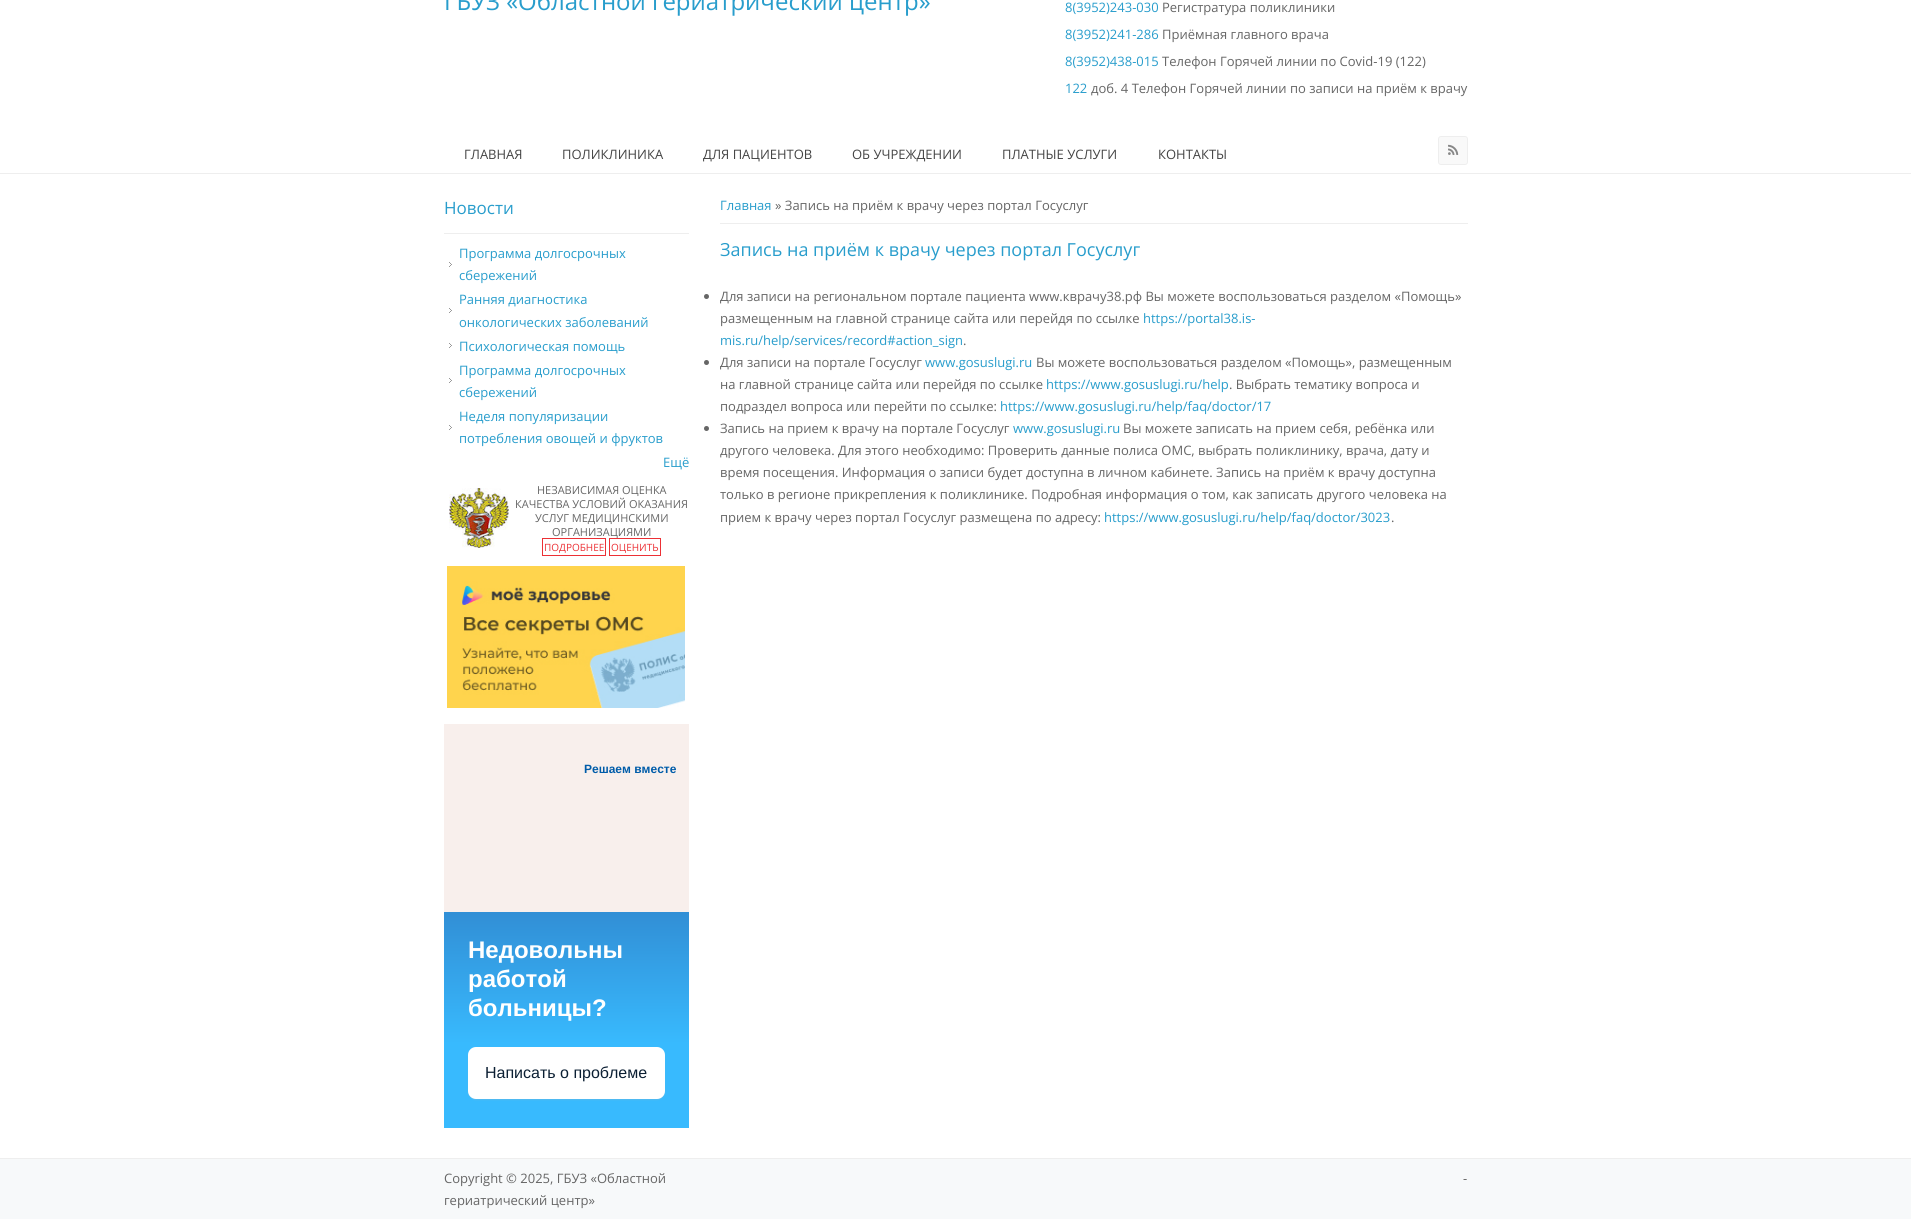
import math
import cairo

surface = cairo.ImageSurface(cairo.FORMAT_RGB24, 1911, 1219)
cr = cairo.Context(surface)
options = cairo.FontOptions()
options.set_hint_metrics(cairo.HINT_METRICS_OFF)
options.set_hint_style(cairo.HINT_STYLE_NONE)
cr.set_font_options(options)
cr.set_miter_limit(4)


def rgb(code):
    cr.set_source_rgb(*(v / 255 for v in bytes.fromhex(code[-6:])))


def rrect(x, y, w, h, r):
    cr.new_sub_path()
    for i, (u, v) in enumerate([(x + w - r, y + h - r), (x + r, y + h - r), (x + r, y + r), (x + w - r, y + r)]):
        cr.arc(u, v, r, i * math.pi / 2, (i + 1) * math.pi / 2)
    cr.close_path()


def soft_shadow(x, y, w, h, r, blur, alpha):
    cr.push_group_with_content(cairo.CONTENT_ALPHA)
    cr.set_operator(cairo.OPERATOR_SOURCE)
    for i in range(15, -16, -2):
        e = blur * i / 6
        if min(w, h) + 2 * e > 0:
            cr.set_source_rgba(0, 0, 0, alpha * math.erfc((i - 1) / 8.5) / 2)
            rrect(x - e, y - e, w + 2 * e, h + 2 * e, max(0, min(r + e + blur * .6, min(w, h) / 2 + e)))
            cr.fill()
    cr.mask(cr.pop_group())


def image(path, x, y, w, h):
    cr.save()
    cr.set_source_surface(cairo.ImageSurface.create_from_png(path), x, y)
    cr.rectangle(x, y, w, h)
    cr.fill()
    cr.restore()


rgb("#ffffff")
cr.paint()
rgb("#eeeeee")
cr.rectangle(0, 173, 1911, 1)
cr.fill()
rgb("#f9f9f9")
rrect(1438.5, 136.5, 29, 28, 2.5)
cr.fill_preserve()
rgb("#eeeeee")
cr.set_line_width(1)
cr.stroke()
image("img/1.png", 1448, 144, 11, 11)
cr.rectangle(444, 233, 245, 1)
cr.fill()
image("img/2.png", 449, 262, 3, 5)
image("img/2.png", 449, 308, 3, 5)
image("img/2.png", 449, 343, 3, 5)
image("img/2.png", 449, 378, 3, 5)
image("img/2.png", 449, 425, 3, 5)
image("img/3.png", 449, 488, 60, 60)
image("img/4.png", 447, 566, 238, 142)
gradient = cairo.LinearGradient(567, 724, 567, 1128)
gradient.add_color_stop_rgba(0.26, 0.176, 0.451, 0.737, 1)
gradient.add_color_stop_rgba(0.79, 0.22, 0.729, 0.996, 1)
cr.set_source(gradient)
cr.rectangle(444, 912, 245, 216)
cr.fill()
rgb("#f8efec")
cr.rectangle(444, 724, 245, 188)
cr.fill()
rgb("#b4b4b4")
soft_shadow(468, 1048, 197, 52, 8, 0.5, 0.2)
rgb("#ffffff")
rrect(468, 1047, 197, 52, 8)
cr.fill()
rgb("#eeeeee")
cr.rectangle(720, 223, 748, 1)
cr.fill()
rgb("#666666")
cr.arc(706.5, 296.5, 2.5, 0, 2 * math.pi)
cr.fill()
cr.arc(706.5, 362.5, 2.5, 0, 2 * math.pi)
cr.fill()
cr.arc(706.5, 428.5, 2.5, 0, 2 * math.pi)
cr.fill()
rgb("#f7f9fa")
cr.rectangle(0, 1159, 1911, 60)
cr.fill()
rgb("#eeeeee")
cr.rectangle(0, 1158, 1911, 1)
cr.fill()
cr.select_font_face("Open Sans")
cr.set_font_size(24)
rgb("#289dcc")
cr.move_to(444, 10)
cr.show_text("ГБУЗ «Областной гериатрический центр»")
cr.set_font_size(13)
cr.move_to(1065, 12)
cr.show_text("8(3952)243-030")
rgb("#666666")
cr.move_to(1162, 12)
cr.show_text("Регистратура поликлиники")
rgb("#289dcc")
cr.move_to(1065, 39)
cr.show_text("8(3952)241-286")
rgb("#666666")
cr.move_to(1162, 39)
cr.show_text("Приёмная главного врача")
rgb("#289dcc")
cr.move_to(1065, 66)
cr.show_text("8(3952)438-015")
rgb("#666666")
cr.move_to(1162, 66)
cr.show_text("Телефон Горячей линии по Covid-19 (122)")
rgb("#289dcc")
cr.move_to(1065, 93)
cr.show_text("122")
rgb("#666666")
cr.move_to(1091, 93)
cr.show_text("доб. 4 Телефон Горячей линии по записи на приём к врачу")
rgb("#444444")
for x, y, s in [
    (464, 159, "ГЛАВНАЯ"),
    (562, 159, "ПОЛИКЛИНИКА"),
    (703, 159, "ДЛЯ ПАЦИЕНТОВ"),
    (852, 159, "ОБ УЧРЕЖДЕНИИ"),
    (1002, 159, "ПЛАТНЫЕ УСЛУГИ"),
    (1158, 159, "КОНТАКТЫ"),
]:
    cr.move_to(x, y)
    cr.show_text(s)
cr.set_font_size(17)
rgb("#289dcc")
cr.move_to(444, 214)
cr.show_text("Новости")
cr.set_font_size(13)
for x, y, s in [
    (459, 258, "Программа долгосрочных"),
    (459, 280, "сбережений"),
    (459, 304, "Ранняя диагностика"),
    (459, 327, "онкологических заболеваний"),
    (459, 351, "Психологическая помощь"),
    (459, 375, "Программа долгосрочных"),
    (459, 397, "сбережений"),
    (459, 421, "Неделя популяризации"),
    (459, 443, "потребления овощей и фруктов"),
    (663, 467, "Ещё"),
]:
    cr.move_to(x, y)
    cr.show_text(s)
cr.set_font_size(11)
rgb("#666666")
for x, y, s in [
    (537, 494, "НЕЗАВИСИМАЯ ОЦЕНКА"),
    (515, 508, "КАЧЕСТВА УСЛОВИЙ ОКАЗАНИЯ"),
    (535, 522, "УСЛУГ МЕДИЦИНСКИМИ"),
    (552, 536, "ОРГАНИЗАЦИЯМИ"),
]:
    cr.move_to(x, y)
    cr.show_text(s)
cr.rectangle(542.5, 538.5, 63, 17)
rgb("#ec3035")
cr.stroke()
cr.set_font_size(10)
cr.move_to(544, 551)
cr.show_text("ПОДРОБНЕЕ")
cr.rectangle(609.5, 538.5, 51, 17)
cr.stroke()
cr.move_to(611, 551)
cr.show_text("ОЦЕНИТЬ")
cr.select_font_face("Liberation Sans", cairo.FONT_SLANT_NORMAL, cairo.FONT_WEIGHT_BOLD)
cr.set_font_size(12)
rgb("#005ca9")
cr.move_to(584, 773)
cr.show_text("Решаем вместе")
cr.set_font_size(24)
rgb("#ffffff")
for x, y, s in [
    (468, 958, "Недовольны"),
    (468, 987, "работой"),
    (468, 1016, "больницы?"),
]:
    cr.move_to(x, y)
    cr.show_text(s)
cr.select_font_face("Liberation Sans")
cr.set_font_size(16)
rgb("#0b1f33")
cr.move_to(485, 1078)
cr.show_text("Написать о проблеме")
cr.select_font_face("Open Sans")
cr.set_font_size(13)
rgb("#289dcc")
cr.move_to(720, 210)
cr.show_text("Главная")
rgb("#666666")
cr.move_to(775, 210)
cr.show_text("» Запись на приём к врачу через портал Госуслуг")
cr.set_font_size(18)
rgb("#289dcc")
cr.move_to(720, 256)
cr.show_text("Запись на приём к врачу через портал Госуслуг")
cr.set_font_size(13)
rgb("#666666")
cr.move_to(720, 301)
cr.show_text("Для записи на региональном портале пациента www.кврачу38.рф Вы можете воспользоваться разделом «Помощь»")
cr.move_to(720, 323)
cr.show_text("размещенным на главной странице сайта или перейдя по ссылке")
rgb("#289dcc")
cr.move_to(1143, 323)
cr.show_text("https://portal38.is-")
cr.move_to(720, 345)
cr.show_text("mis.ru/help/services/record#action_sign")
rgb("#666666")
cr.move_to(963, 345)
cr.show_text(".")
cr.move_to(720, 367)
cr.show_text("Для записи на портале Госуслуг")
rgb("#289dcc")
cr.move_to(925, 367)
cr.show_text("www.gosuslugi.ru")
rgb("#666666")
cr.move_to(1036, 367)
cr.show_text("Вы можете воспользоваться разделом «Помощь», размещенным")
cr.move_to(720, 389)
cr.show_text("на главной странице сайта или перейдя по ссылке")
rgb("#289dcc")
cr.move_to(1046, 389)
cr.show_text("https://www.gosuslugi.ru/help")
rgb("#666666")
cr.move_to(1229, 389)
cr.show_text(". Выбрать тематику вопроса и")
cr.move_to(720, 411)
cr.show_text("подраздел вопроса или перейти по ссылке:")
rgb("#289dcc")
cr.move_to(1000, 411)
cr.show_text("https://www.gosuslugi.ru/help/faq/doctor/17")
rgb("#666666")
cr.move_to(720, 433)
cr.show_text("Запись на прием к врачу на портале Госуслуг")
rgb("#289dcc")
cr.move_to(1013, 433)
cr.show_text("www.gosuslugi.ru")
rgb("#666666")
for x, y, s in [
    (1123, 433, "Вы можете записать на прием себя, ребёнка или"),
    (720, 455, "другого человека. Для этого необходимо: Проверить данные полиса ОМС, выбрать поликлинику, врача, дату и"),
    (720, 477, "время посещения. Информация о записи будет доступна в личном кабинете. Запись на приём к врачу доступна"),
    (720, 499, "только в регионе прикрепления к поликлинике. Подробная информация о том, как записать другого человека на"),
    (720, 522, "прием к врачу через портал Госуслуг размещена по адресу:"),
]:
    cr.move_to(x, y)
    cr.show_text(s)
rgb("#289dcc")
cr.move_to(1104, 522)
cr.show_text("https://www.gosuslugi.ru/help/faq/doctor/3023")
rgb("#666666")
for x, y, s in [
    (1391, 522, "."),
    (444, 1183, "Copyright © 2025, ГБУЗ «Областной"),
    (444, 1205, "гериатрический центр»"),
    (1463, 1183, "-"),
]:
    cr.move_to(x, y)
    cr.show_text(s)
surface.write_to_png("page.png")
